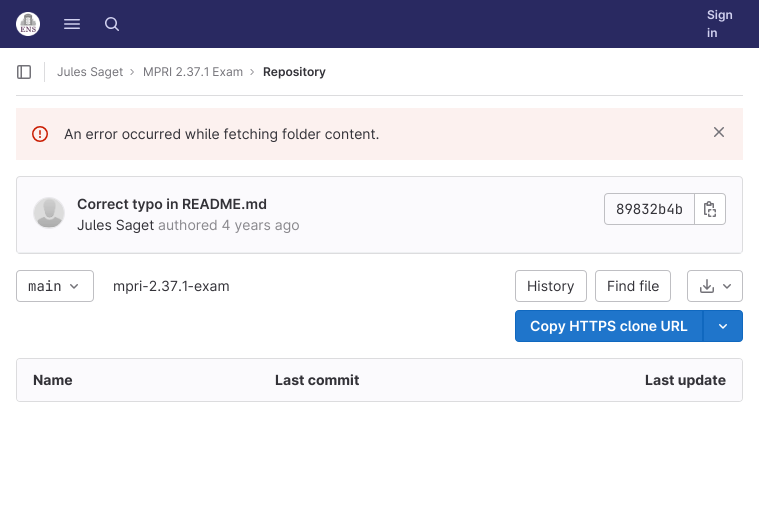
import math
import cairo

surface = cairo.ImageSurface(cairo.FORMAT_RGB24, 759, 526)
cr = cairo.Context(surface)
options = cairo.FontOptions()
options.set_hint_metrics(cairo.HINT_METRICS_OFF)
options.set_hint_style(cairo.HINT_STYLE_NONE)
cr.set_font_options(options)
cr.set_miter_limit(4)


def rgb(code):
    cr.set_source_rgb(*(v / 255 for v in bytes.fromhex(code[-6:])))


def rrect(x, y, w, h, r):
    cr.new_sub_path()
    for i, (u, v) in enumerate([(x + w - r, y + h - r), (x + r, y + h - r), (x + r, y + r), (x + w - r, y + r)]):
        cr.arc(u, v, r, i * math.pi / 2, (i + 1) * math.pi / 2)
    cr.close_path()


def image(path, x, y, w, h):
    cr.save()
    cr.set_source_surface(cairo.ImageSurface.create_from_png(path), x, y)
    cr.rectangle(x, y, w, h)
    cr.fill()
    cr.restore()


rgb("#ffffff")
cr.paint()
rgb("#292961")
cr.rectangle(0, 0, 759, 48)
cr.fill()
image("img/1.png", 16, 12, 24, 24)
image("img/2.png", 64, 19, 16, 10)
image("img/3.png", 105, 17, 14, 14)
rgb("#dcdcde")
cr.rectangle(16, 95, 727, 1)
cr.fill()
image("img/4.png", 17, 65, 14, 14)
cr.rectangle(44, 62, 1, 20)
cr.fill()
image("img/5.png", 130, 69, 4, 6)
image("img/5.png", 250, 69, 4, 6)
rgb("#fcf1ef")
cr.rectangle(16, 108, 727, 52)
cr.fill()
image("img/6.png", 32, 126, 16, 16)
image("img/7.png", 714, 127, 10, 10)
rgb("#fbfafd")
rrect(16.5, 176.5, 726, 77, 3.5)
cr.fill_preserve()
rgb("#dcdcde")
cr.set_line_width(1)
cr.stroke()
rgb("#eef0f2")
cr.rectangle(17, 252, 725, 1)
cr.fill()
cr.arc(49, 213, 15.5, 0, 2 * math.pi)
rgb("#e9e8ec")
cr.stroke()
image("img/8.png", 34, 198, 30, 30)
cr.new_path()
cr.move_to(608, 193.5)
cr.line_to(694.5, 193.5)
cr.line_to(694.5, 224.5)
cr.line_to(608, 224.5)
cr.curve_to(606, 224.5, 604.5, 223, 604.5, 221)
cr.line_to(604.5, 197)
cr.curve_to(604.5, 195, 606, 193.5, 608, 193.5)
cr.close_path()
rgb("#bfbfc3")
cr.stroke()
rgb("#ffffff")
cr.new_path()
cr.move_to(694.5, 193.5)
cr.line_to(722, 193.5)
cr.curve_to(724, 193.5, 725.5, 195, 725.5, 197)
cr.line_to(725.5, 221)
cr.curve_to(725.5, 223, 724, 224.5, 722, 224.5)
cr.line_to(694.5, 224.5)
cr.close_path()
cr.fill_preserve()
rgb("#bfbfc3")
cr.stroke()
image("img/9.png", 704, 201, 12, 16)
rrect(16.5, 270.5, 77, 31, 3.5)
cr.stroke()
image("img/10.png", 70, 284, 8, 5)
rrect(515.5, 270.5, 71, 31, 3.5)
cr.stroke()
rrect(595.5, 270.5, 75, 31, 3.5)
cr.stroke()
rrect(687.5, 270.5, 55, 31, 3.5)
cr.stroke()
image("img/11.png", 700, 279, 14, 14)
image("img/10.png", 723, 284, 8, 5)
rgb("#1f75cb")
cr.new_path()
cr.move_to(519, 310.5)
cr.line_to(702.5, 310.5)
cr.line_to(702.5, 341.5)
cr.line_to(519, 341.5)
cr.curve_to(517, 341.5, 515.5, 340, 515.5, 338)
cr.line_to(515.5, 314)
cr.curve_to(515.5, 312, 517, 310.5, 519, 310.5)
cr.close_path()
cr.fill_preserve()
rgb("#1068bf")
cr.stroke()
rgb("#1f75cb")
cr.new_path()
cr.move_to(703.5, 310.5)
cr.line_to(739, 310.5)
cr.curve_to(741, 310.5, 742.5, 312, 742.5, 314)
cr.line_to(742.5, 338)
cr.curve_to(742.5, 340, 741, 341.5, 739, 341.5)
cr.line_to(703.5, 341.5)
cr.close_path()
cr.fill_preserve()
rgb("#1068bf")
cr.stroke()
image("img/12.png", 719, 324, 8, 5)
rrect(16.5, 358.5, 726, 43, 3.5)
rgb("#dcdcde")
cr.stroke()
rgb("#fbfafd")
cr.new_path()
cr.move_to(20, 359)
cr.line_to(259, 359)
cr.line_to(259, 401)
cr.line_to(20, 401)
cr.curve_to(18.5, 401, 17, 399.5, 17, 398)
cr.line_to(17, 362)
cr.curve_to(17, 360.5, 18.5, 359, 20, 359)
cr.close_path()
cr.fill()
cr.rectangle(259, 359, 241, 42)
cr.fill()
cr.new_path()
cr.move_to(500, 359)
cr.line_to(739, 359)
cr.curve_to(740.5, 359, 742, 360.5, 742, 362)
cr.line_to(742, 398)
cr.curve_to(742, 399.5, 740.5, 401, 739, 401)
cr.line_to(500, 401)
cr.close_path()
cr.fill()
cr.select_font_face("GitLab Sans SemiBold")
cr.set_font_size(12)
rgb("#d1d1f0")
cr.move_to(707, 19)
cr.show_text("Sign")
cr.move_to(707, 37)
cr.show_text("in")
cr.select_font_face("GitLab Sans")
rgb("#737278")
cr.move_to(57, 76)
cr.show_text("Jules Saget")
cr.move_to(143, 76)
cr.show_text("MPRI 2.37.1 Exam")
cr.select_font_face("GitLab Sans SemiBold")
rgb("#333238")
cr.move_to(263, 76)
cr.show_text("Repository")
cr.select_font_face("GitLab Sans")
cr.set_font_size(14)
cr.move_to(64, 139)
cr.show_text("An error occurred while fetching folder content.")
cr.select_font_face("GitLab Sans SemiBold")
cr.move_to(77, 209)
cr.show_text("Correct typo in README.md")
cr.select_font_face("GitLab Sans")
cr.move_to(77, 230)
cr.show_text("Jules Saget")
rgb("#89888d")
cr.move_to(158, 230)
cr.show_text("authored 4 years ago")
cr.select_font_face("JetBrains Mono")
rgb("#333238")
cr.move_to(616, 214)
cr.show_text("89832b4b")
cr.move_to(28, 291)
cr.show_text("main")
cr.select_font_face("GitLab Sans")
for x, y, s in [
    (113, 291, "mpri-2.37.1-exam"),
    (527, 291, "History"),
    (607, 291, "Find file"),
]:
    cr.move_to(x, y)
    cr.show_text(s)
cr.select_font_face("GitLab Sans SemiBold")
rgb("#ffffff")
cr.move_to(530, 331)
cr.show_text("Copy HTTPS clone URL")
cr.select_font_face("GitLab Sans", cairo.FONT_SLANT_NORMAL, cairo.FONT_WEIGHT_BOLD)
rgb("#333238")
for x, y, s in [
    (33, 385, "Name"),
    (275, 385, "Last commit"),
    (645, 385, "Last update"),
]:
    cr.move_to(x, y)
    cr.show_text(s)
surface.write_to_png("page.png")
